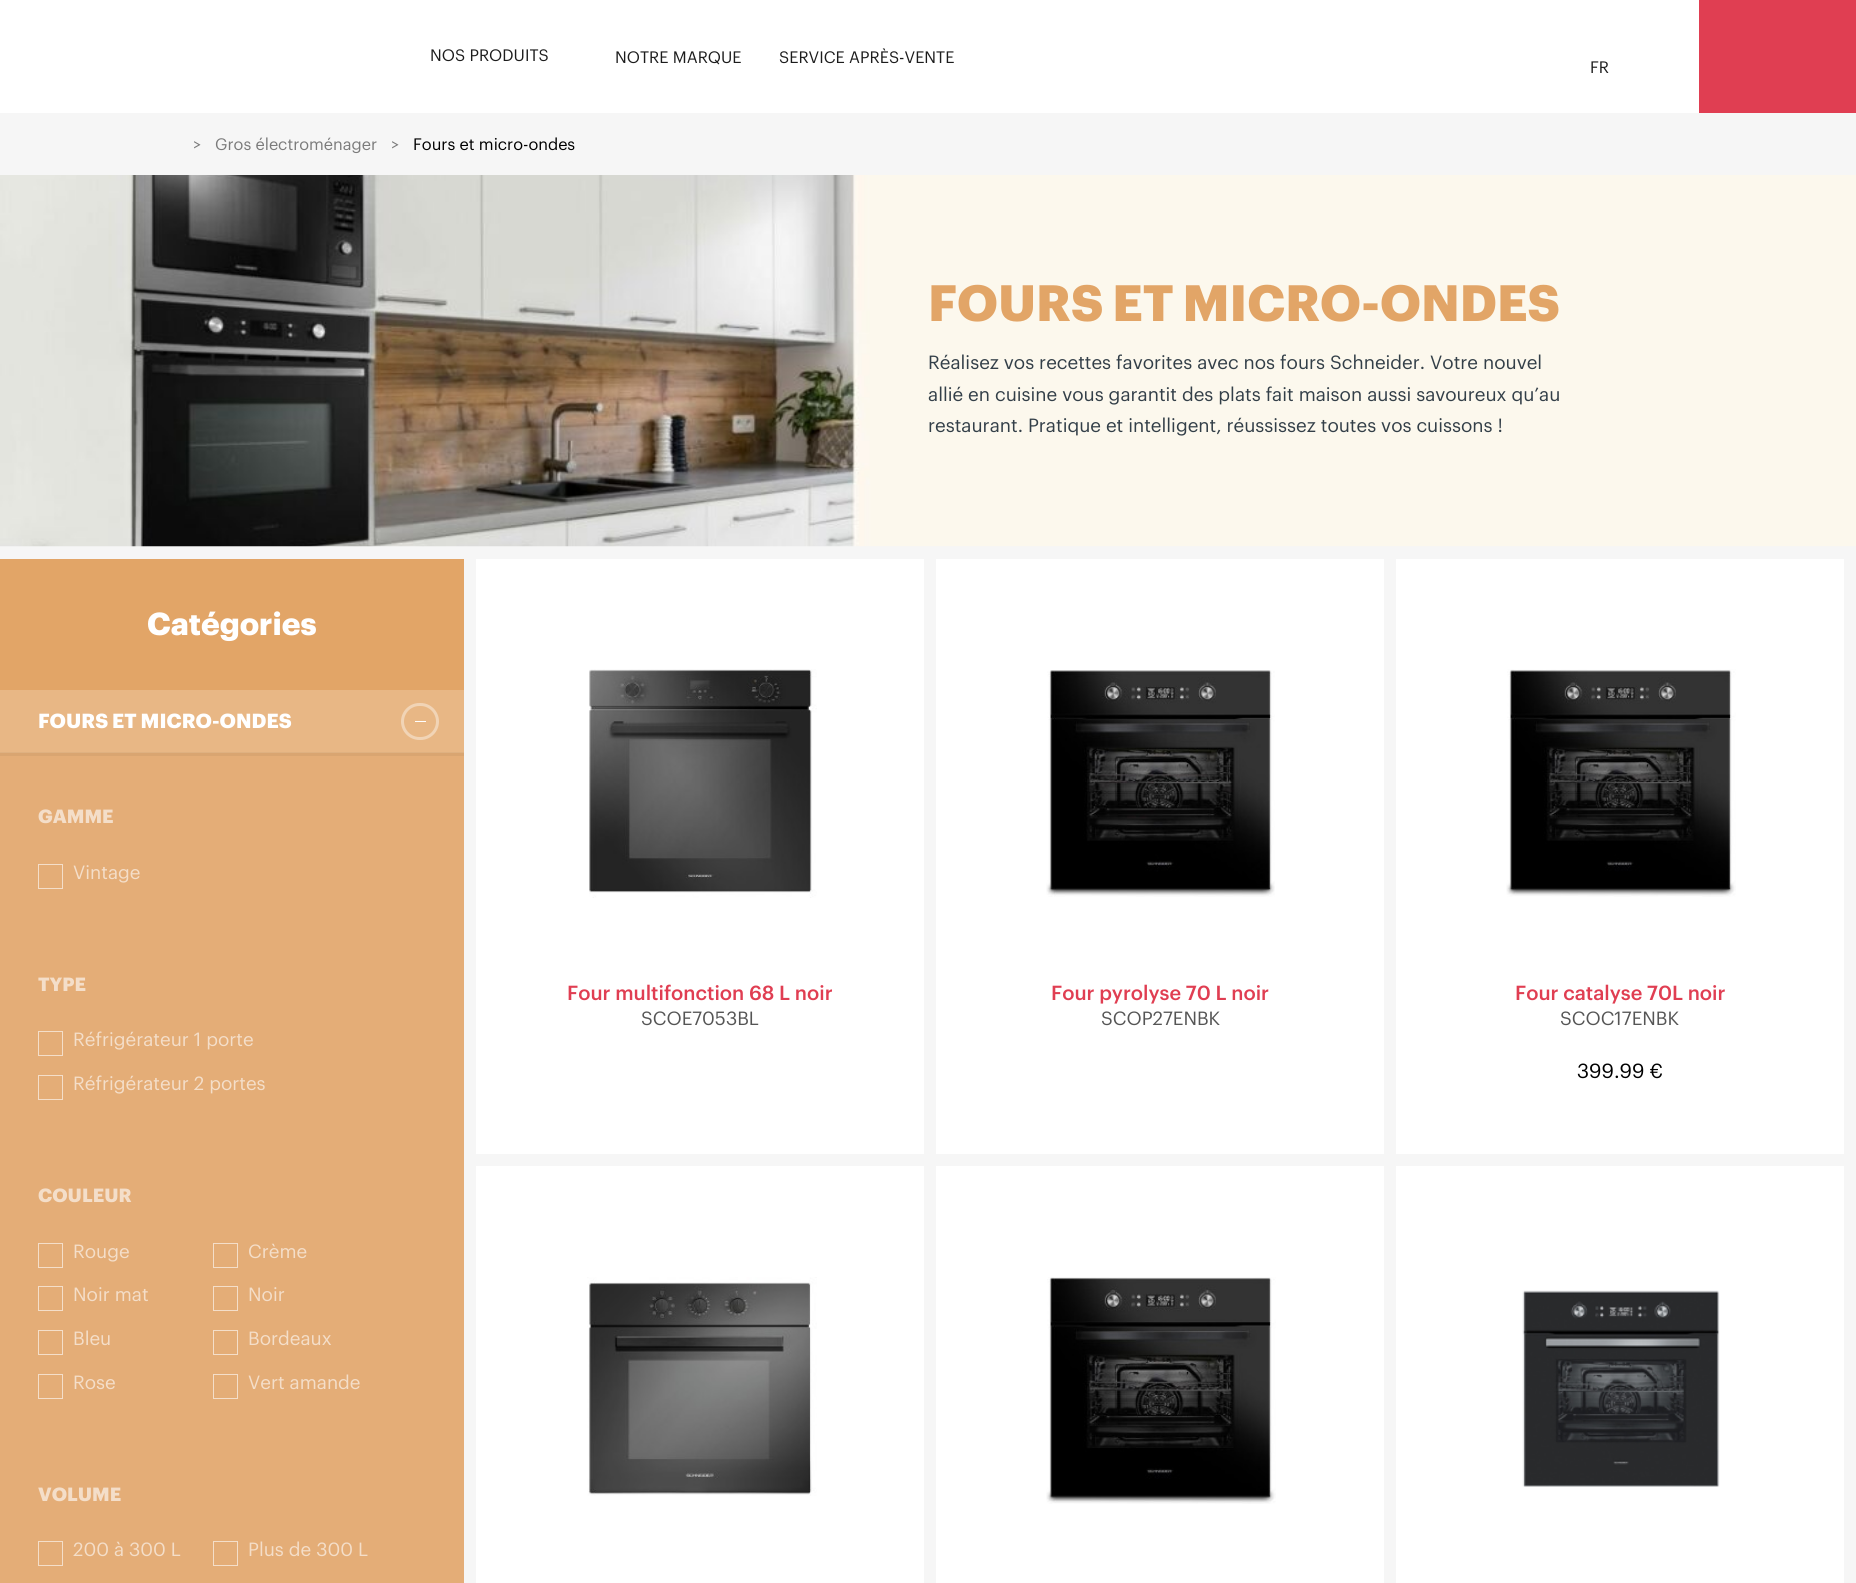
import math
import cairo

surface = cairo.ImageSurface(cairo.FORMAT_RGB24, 1856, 1583)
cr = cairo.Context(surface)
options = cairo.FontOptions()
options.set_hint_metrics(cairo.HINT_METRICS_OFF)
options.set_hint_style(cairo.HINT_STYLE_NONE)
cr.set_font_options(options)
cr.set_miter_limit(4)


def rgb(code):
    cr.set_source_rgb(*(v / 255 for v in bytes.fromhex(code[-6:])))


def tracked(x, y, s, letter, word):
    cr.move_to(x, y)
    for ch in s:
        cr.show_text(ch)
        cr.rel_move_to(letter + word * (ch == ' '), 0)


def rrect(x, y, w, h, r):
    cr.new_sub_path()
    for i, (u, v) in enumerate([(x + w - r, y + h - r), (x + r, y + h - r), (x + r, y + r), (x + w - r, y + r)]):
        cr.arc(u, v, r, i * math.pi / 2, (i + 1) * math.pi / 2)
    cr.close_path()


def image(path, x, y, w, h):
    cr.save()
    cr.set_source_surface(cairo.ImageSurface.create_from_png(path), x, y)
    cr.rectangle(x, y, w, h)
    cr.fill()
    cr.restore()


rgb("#f6f6f6")
cr.paint()
rgb("#ffffff")
cr.rectangle(0, 0, 1699, 113)
cr.fill()
rgb("#e03e52")
cr.rectangle(1699, 0, 157, 113)
cr.fill()
image("img/1.png", 0, 175, 1856, 372)
rgb("#e2a567")
cr.rectangle(0, 559, 464, 194)
cr.fill()
rgb("#e4ad77")
cr.rectangle(0, 753, 464, 830)
cr.fill()
cr.set_source_rgba(0, 0, 0, 0.05)
cr.new_path()
cr.move_to(0, 752)
cr.line_to(0, 756)
cr.line_to(464, 756)
cr.line_to(464, 694)
cr.line_to(464, 752)
cr.close_path()
cr.fill()
cr.set_source_rgba(1, 1, 1, 0.2)
cr.rectangle(0, 690, 464, 63)
cr.fill()
rrect(402.5, 704.5, 35, 34, 17)
rgb("#f1d4b6")
cr.set_line_width(3)
cr.stroke()
rgb("#ffffff")
cr.rectangle(415, 721, 11, 1)
cr.fill()
cr.rectangle(38.5, 864.5, 24, 24)
rgb("#f4dec9")
cr.set_line_width(1)
cr.stroke()
cr.rectangle(38.5, 1031.5, 24, 24)
cr.stroke()
cr.rectangle(38.5, 1075.5, 24, 24)
cr.stroke()
cr.rectangle(38.5, 1243.5, 24, 24)
cr.stroke()
cr.rectangle(213.5, 1243.5, 24, 24)
cr.stroke()
cr.rectangle(38.5, 1286.5, 24, 24)
cr.stroke()
cr.rectangle(213.5, 1286.5, 24, 24)
cr.stroke()
cr.rectangle(38.5, 1330.5, 24, 24)
cr.stroke()
cr.rectangle(213.5, 1330.5, 24, 24)
cr.stroke()
cr.rectangle(38.5, 1374.5, 24, 24)
cr.stroke()
cr.rectangle(213.5, 1374.5, 24, 24)
cr.stroke()
cr.rectangle(38.5, 1541.5, 24, 24)
cr.stroke()
cr.rectangle(213.5, 1541.5, 24, 24)
cr.stroke()
rgb("#ffffff")
cr.rectangle(476, 559, 448, 595)
cr.fill()
image("img/2.png", 589, 669, 228, 229)
cr.rectangle(936, 559, 448, 595)
cr.fill()
image("img/3.png", 1046, 670, 229, 227)
cr.rectangle(1396, 559, 448, 595)
cr.fill()
image("img/4.png", 1506, 669, 230, 228)
cr.rectangle(476, 1166, 448, 417)
cr.fill()
image("img/5.png", 587, 1277, 230, 219)
cr.rectangle(936, 1166, 448, 417)
cr.fill()
image("img/6.png", 1046, 1277, 230, 227)
cr.rectangle(1396, 1166, 448, 417)
cr.fill()
image("img/7.png", 1522, 1290, 198, 197)
cr.select_font_face("Graphik")
cr.set_font_size(16.25)
rgb("#1c1c1c")
for x, y, s in [
    (430, 61, "NOS PRODUITS"),
    (615, 63, "NOTRE MARQUE"),
    (779, 63, "SERVICE APRÈS-VENTE"),
    (1590, 73, "FR"),
]:
    cr.move_to(x, y)
    cr.show_text(s)
rgb("#7b7b7b")
for x, y, s in [
    (193, 150, ">"),
    (215, 150, "Gros électroménager"),
    (391, 150, ">"),
]:
    cr.move_to(x, y)
    cr.show_text(s)
rgb("#000000")
cr.move_to(413, 150)
cr.show_text("Fours et micro-ondes")
cr.select_font_face("Graphik", cairo.FONT_SLANT_NORMAL, cairo.FONT_WEIGHT_BOLD)
cr.set_font_size(50)
rgb("#e2a567")
tracked(928, 321, "FOURS ET MICRO-ONDES", 0, -1)
cr.select_font_face("Graphik")
cr.set_font_size(18.75)
rgb("#333f48")
for x, y, s in [
    (928, 369, "Réalisez vos recettes favorites avec nos fours Schneider. Votre nouvel"),
    (928, 401, "allié en cuisine vous garantit des plats fait maison aussi savoureux qu’au"),
    (928, 432, "restaurant. Pratique et intelligent, réussissez toutes vos cuissons !"),
]:
    cr.move_to(x, y)
    cr.show_text(s)
cr.select_font_face("Graphik", cairo.FONT_SLANT_NORMAL, cairo.FONT_WEIGHT_BOLD)
cr.set_font_size(31.25)
rgb("#ffffff")
cr.move_to(147, 635)
cr.show_text("Catégories")
cr.set_font_size(20)
cr.move_to(38, 728)
cr.show_text("FOURS ET MICRO-ONDES")
cr.set_font_size(18.75)
rgb("#f4dec9")
cr.move_to(38, 823)
cr.show_text("GAMME")
cr.select_font_face("Graphik")
cr.move_to(73, 879)
cr.show_text("Vintage")
cr.select_font_face("Graphik", cairo.FONT_SLANT_NORMAL, cairo.FONT_WEIGHT_BOLD)
cr.move_to(38, 991)
cr.show_text("TYPE")
cr.select_font_face("Graphik")
cr.move_to(73, 1046)
cr.show_text("Réfrigérateur 1 porte")
cr.move_to(73, 1090)
cr.show_text("Réfrigérateur 2 portes")
cr.select_font_face("Graphik", cairo.FONT_SLANT_NORMAL, cairo.FONT_WEIGHT_BOLD)
cr.move_to(38, 1202)
cr.show_text("COULEUR")
cr.select_font_face("Graphik")
for x, y, s in [
    (73, 1258, "Rouge"),
    (248, 1258, "Crème"),
    (73, 1301, "Noir mat"),
    (248, 1301, "Noir"),
    (73, 1345, "Bleu"),
    (248, 1345, "Bordeaux"),
    (73, 1389, "Rose"),
    (248, 1389, "Vert amande"),
]:
    cr.move_to(x, y)
    cr.show_text(s)
cr.select_font_face("Graphik", cairo.FONT_SLANT_NORMAL, cairo.FONT_WEIGHT_BOLD)
cr.move_to(38, 1501)
cr.show_text("VOLUME")
cr.select_font_face("Graphik")
cr.move_to(73, 1556)
cr.show_text("200 à 300 L")
cr.move_to(248, 1556)
cr.show_text("Plus de 300 L")
cr.select_font_face("Graphik Medium")
cr.set_font_size(20)
rgb("#e03e52")
cr.move_to(567, 1000)
cr.show_text("Four multifonction 68 L noir")
cr.select_font_face("Graphik")
cr.set_font_size(18.75)
rgb("#555555")
cr.move_to(641, 1025)
cr.show_text("SCOE7053BL")
cr.select_font_face("Graphik Medium")
cr.set_font_size(20)
rgb("#e03e52")
cr.move_to(1051, 1000)
cr.show_text("Four pyrolyse 70 L noir")
cr.select_font_face("Graphik")
cr.set_font_size(18.75)
rgb("#555555")
cr.move_to(1101, 1025)
cr.show_text("SCOP27ENBK")
cr.select_font_face("Graphik Medium")
cr.set_font_size(20)
rgb("#e03e52")
cr.move_to(1515, 1000)
cr.show_text("Four catalyse 70L noir")
cr.select_font_face("Graphik")
cr.set_font_size(18.75)
rgb("#555555")
cr.move_to(1560, 1025)
cr.show_text("SCOC17ENBK")
cr.set_font_size(20)
rgb("#000000")
cr.move_to(1577, 1078)
cr.show_text("399.99 €")
surface.write_to_png("page.png")
